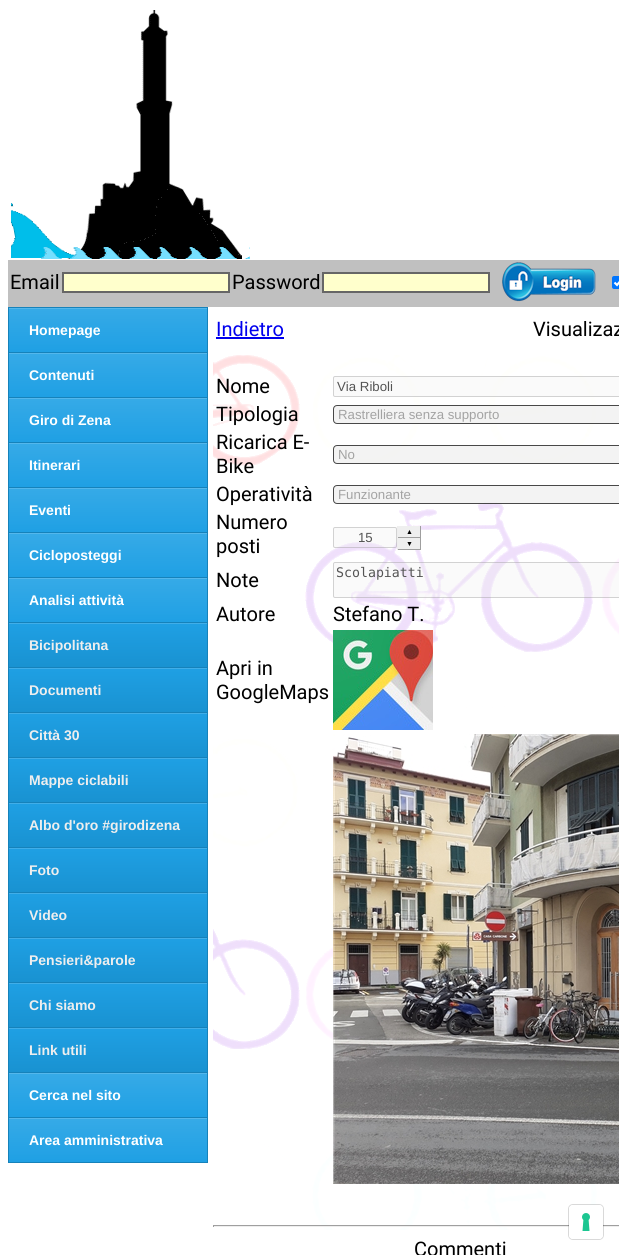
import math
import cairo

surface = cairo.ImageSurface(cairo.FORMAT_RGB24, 619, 1255)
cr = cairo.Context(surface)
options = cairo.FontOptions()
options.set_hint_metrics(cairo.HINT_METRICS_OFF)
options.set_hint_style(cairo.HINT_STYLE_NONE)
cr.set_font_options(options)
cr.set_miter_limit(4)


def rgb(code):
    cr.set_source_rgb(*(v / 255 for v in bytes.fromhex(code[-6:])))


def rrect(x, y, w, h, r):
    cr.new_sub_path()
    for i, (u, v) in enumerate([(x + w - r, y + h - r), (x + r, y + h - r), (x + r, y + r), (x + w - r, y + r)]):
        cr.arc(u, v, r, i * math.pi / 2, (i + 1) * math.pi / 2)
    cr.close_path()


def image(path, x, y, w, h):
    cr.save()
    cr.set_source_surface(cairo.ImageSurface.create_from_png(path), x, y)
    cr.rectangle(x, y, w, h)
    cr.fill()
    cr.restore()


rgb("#ffffff")
cr.paint()
image("img/1.png", 11, 10, 239, 249)
rgb("#c0c0c0")
cr.rectangle(8, 260, 611, 47)
cr.fill()
rgb("#ffffcc")
cr.rectangle(63, 273, 166, 19)
cr.fill_preserve()
rgb("#666666")
cr.stroke()
rgb("#ffffcc")
cr.rectangle(323, 273, 166, 19)
cr.fill_preserve()
rgb("#666666")
cr.stroke()
image("img/2.png", 502, 262, 94, 40)
rgb("#0075ff")
rrect(612, 276, 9, 13, 2)
cr.fill()
cr.new_path()
cr.move_to(614.5, 282.5)
cr.line_to(617, 285)
cr.line_to(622.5, 278.5)
rgb("#ffffff")
cr.set_line_width(2.1)
cr.stroke()
gradient = cairo.LinearGradient(108, 308, 108, 352)
gradient.add_color_stop_rgba(0, 0.212, 0.667, 0.906, 1)
gradient.add_color_stop_rgba(1, 0.122, 0.627, 0.894, 1)
cr.set_source(gradient)
cr.rectangle(9, 309, 198, 43)
cr.fill()
for x, y, w, h, color in [
    (9, 308, 198, 1, "#54b7eb"),
    (8, 307, 200, 1, "#1682ba"),
    (207, 307, 1, 45, "#1682ba"),
    (8, 307, 1, 45, "#1682ba"),
]:
    rgb(color)
    cr.rectangle(x, y, w, h)
    cr.fill()
gradient = cairo.LinearGradient(108, 353, 108, 397)
gradient.add_color_stop_rgba(0, 0.212, 0.667, 0.906, 1)
gradient.add_color_stop_rgba(1, 0.122, 0.627, 0.894, 1)
cr.set_source(gradient)
cr.rectangle(9, 354, 198, 43)
cr.fill()
for x, y, w, h, color in [
    (9, 353, 198, 1, "#54b7eb"),
    (8, 352, 200, 1, "#1682ba"),
    (207, 352, 1, 45, "#1682ba"),
    (8, 352, 1, 45, "#1682ba"),
]:
    rgb(color)
    cr.rectangle(x, y, w, h)
    cr.fill()
gradient = cairo.LinearGradient(108, 398, 108, 442)
gradient.add_color_stop_rgba(0, 0.212, 0.667, 0.906, 1)
gradient.add_color_stop_rgba(1, 0.122, 0.627, 0.894, 1)
cr.set_source(gradient)
cr.rectangle(9, 399, 198, 43)
cr.fill()
for x, y, w, h, color in [
    (9, 398, 198, 1, "#54b7eb"),
    (8, 397, 200, 1, "#1682ba"),
    (207, 397, 1, 45, "#1682ba"),
    (8, 397, 1, 45, "#1682ba"),
]:
    rgb(color)
    cr.rectangle(x, y, w, h)
    cr.fill()
gradient = cairo.LinearGradient(108, 443, 108, 487)
gradient.add_color_stop_rgba(0, 0.212, 0.667, 0.906, 1)
gradient.add_color_stop_rgba(1, 0.122, 0.627, 0.894, 1)
cr.set_source(gradient)
cr.rectangle(9, 444, 198, 43)
cr.fill()
for x, y, w, h, color in [
    (9, 443, 198, 1, "#54b7eb"),
    (8, 442, 200, 1, "#1682ba"),
    (207, 442, 1, 45, "#1682ba"),
    (8, 442, 1, 45, "#1682ba"),
]:
    rgb(color)
    cr.rectangle(x, y, w, h)
    cr.fill()
gradient = cairo.LinearGradient(108, 488, 108, 532)
gradient.add_color_stop_rgba(0, 0.212, 0.667, 0.906, 1)
gradient.add_color_stop_rgba(1, 0.122, 0.627, 0.894, 1)
cr.set_source(gradient)
cr.rectangle(9, 489, 198, 43)
cr.fill()
for x, y, w, h, color in [
    (9, 488, 198, 1, "#54b7eb"),
    (8, 487, 200, 1, "#1682ba"),
    (207, 487, 1, 45, "#1682ba"),
    (8, 487, 1, 45, "#1682ba"),
]:
    rgb(color)
    cr.rectangle(x, y, w, h)
    cr.fill()
gradient = cairo.LinearGradient(108, 533, 108, 577)
gradient.add_color_stop_rgba(0, 0.212, 0.667, 0.906, 1)
gradient.add_color_stop_rgba(1, 0.122, 0.627, 0.894, 1)
cr.set_source(gradient)
cr.rectangle(9, 534, 198, 43)
cr.fill()
for x, y, w, h, color in [
    (9, 533, 198, 1, "#54b7eb"),
    (8, 532, 200, 1, "#1682ba"),
    (207, 532, 1, 45, "#1682ba"),
    (8, 532, 1, 45, "#1682ba"),
]:
    rgb(color)
    cr.rectangle(x, y, w, h)
    cr.fill()
gradient = cairo.LinearGradient(108, 578, 108, 622)
gradient.add_color_stop_rgba(0, 0.212, 0.667, 0.906, 1)
gradient.add_color_stop_rgba(1, 0.122, 0.627, 0.894, 1)
cr.set_source(gradient)
cr.rectangle(9, 579, 198, 43)
cr.fill()
for x, y, w, h, color in [
    (9, 578, 198, 1, "#54b7eb"),
    (8, 577, 200, 1, "#1682ba"),
    (207, 577, 1, 45, "#1682ba"),
    (8, 577, 1, 45, "#1682ba"),
]:
    rgb(color)
    cr.rectangle(x, y, w, h)
    cr.fill()
gradient = cairo.LinearGradient(108, 623, 108, 667)
gradient.add_color_stop_rgba(0, 0.122, 0.627, 0.894, 1)
gradient.add_color_stop_rgba(1, 0.098, 0.573, 0.82, 1)
cr.set_source(gradient)
cr.rectangle(9, 624, 198, 43)
cr.fill()
for x, y, w, h, color in [
    (9, 623, 198, 1, "#41aee8"),
    (8, 622, 200, 1, "#1682ba"),
    (207, 622, 1, 45, "#1682ba"),
    (8, 622, 1, 45, "#1682ba"),
]:
    rgb(color)
    cr.rectangle(x, y, w, h)
    cr.fill()
gradient = cairo.LinearGradient(108, 668, 108, 712)
gradient.add_color_stop_rgba(0, 0.122, 0.627, 0.894, 1)
gradient.add_color_stop_rgba(1, 0.098, 0.573, 0.82, 1)
cr.set_source(gradient)
cr.rectangle(9, 669, 198, 43)
cr.fill()
for x, y, w, h, color in [
    (9, 668, 198, 1, "#41aee8"),
    (8, 667, 200, 1, "#1682ba"),
    (207, 667, 1, 45, "#1682ba"),
    (8, 667, 1, 45, "#1682ba"),
]:
    rgb(color)
    cr.rectangle(x, y, w, h)
    cr.fill()
gradient = cairo.LinearGradient(108, 713, 108, 757)
gradient.add_color_stop_rgba(0, 0.122, 0.627, 0.894, 1)
gradient.add_color_stop_rgba(1, 0.098, 0.573, 0.82, 1)
cr.set_source(gradient)
cr.rectangle(9, 714, 198, 43)
cr.fill()
for x, y, w, h, color in [
    (9, 713, 198, 1, "#41aee8"),
    (8, 712, 200, 1, "#1682ba"),
    (207, 712, 1, 45, "#1682ba"),
    (8, 712, 1, 45, "#1682ba"),
]:
    rgb(color)
    cr.rectangle(x, y, w, h)
    cr.fill()
gradient = cairo.LinearGradient(108, 758, 108, 802)
gradient.add_color_stop_rgba(0, 0.122, 0.627, 0.894, 1)
gradient.add_color_stop_rgba(1, 0.098, 0.573, 0.82, 1)
cr.set_source(gradient)
cr.rectangle(9, 759, 198, 43)
cr.fill()
for x, y, w, h, color in [
    (9, 758, 198, 1, "#41aee8"),
    (8, 757, 200, 1, "#1682ba"),
    (207, 757, 1, 45, "#1682ba"),
    (8, 757, 1, 45, "#1682ba"),
]:
    rgb(color)
    cr.rectangle(x, y, w, h)
    cr.fill()
gradient = cairo.LinearGradient(108, 803, 108, 847)
gradient.add_color_stop_rgba(0, 0.122, 0.627, 0.894, 1)
gradient.add_color_stop_rgba(1, 0.098, 0.573, 0.82, 1)
cr.set_source(gradient)
cr.rectangle(9, 804, 198, 43)
cr.fill()
for x, y, w, h, color in [
    (9, 803, 198, 1, "#41aee8"),
    (8, 802, 200, 1, "#1682ba"),
    (207, 802, 1, 45, "#1682ba"),
    (8, 802, 1, 45, "#1682ba"),
]:
    rgb(color)
    cr.rectangle(x, y, w, h)
    cr.fill()
gradient = cairo.LinearGradient(108, 848, 108, 892)
gradient.add_color_stop_rgba(0, 0.122, 0.627, 0.894, 1)
gradient.add_color_stop_rgba(1, 0.098, 0.573, 0.82, 1)
cr.set_source(gradient)
cr.rectangle(9, 849, 198, 43)
cr.fill()
for x, y, w, h, color in [
    (9, 848, 198, 1, "#41aee8"),
    (8, 847, 200, 1, "#1682ba"),
    (207, 847, 1, 45, "#1682ba"),
    (8, 847, 1, 45, "#1682ba"),
]:
    rgb(color)
    cr.rectangle(x, y, w, h)
    cr.fill()
gradient = cairo.LinearGradient(108, 893, 108, 937)
gradient.add_color_stop_rgba(0, 0.122, 0.627, 0.894, 1)
gradient.add_color_stop_rgba(1, 0.098, 0.573, 0.82, 1)
cr.set_source(gradient)
cr.rectangle(9, 894, 198, 43)
cr.fill()
for x, y, w, h, color in [
    (9, 893, 198, 1, "#41aee8"),
    (8, 892, 200, 1, "#1682ba"),
    (207, 892, 1, 45, "#1682ba"),
    (8, 892, 1, 45, "#1682ba"),
]:
    rgb(color)
    cr.rectangle(x, y, w, h)
    cr.fill()
gradient = cairo.LinearGradient(108, 938, 108, 982)
gradient.add_color_stop_rgba(0, 0.122, 0.627, 0.894, 1)
gradient.add_color_stop_rgba(1, 0.098, 0.573, 0.82, 1)
cr.set_source(gradient)
cr.rectangle(9, 939, 198, 43)
cr.fill()
for x, y, w, h, color in [
    (9, 938, 198, 1, "#41aee8"),
    (8, 937, 200, 1, "#1682ba"),
    (207, 937, 1, 45, "#1682ba"),
    (8, 937, 1, 45, "#1682ba"),
]:
    rgb(color)
    cr.rectangle(x, y, w, h)
    cr.fill()
gradient = cairo.LinearGradient(108, 983, 108, 1027)
gradient.add_color_stop_rgba(0, 0.122, 0.627, 0.894, 1)
gradient.add_color_stop_rgba(1, 0.098, 0.573, 0.82, 1)
cr.set_source(gradient)
cr.rectangle(9, 984, 198, 43)
cr.fill()
for x, y, w, h, color in [
    (9, 983, 198, 1, "#41aee8"),
    (8, 982, 200, 1, "#1682ba"),
    (207, 982, 1, 45, "#1682ba"),
    (8, 982, 1, 45, "#1682ba"),
]:
    rgb(color)
    cr.rectangle(x, y, w, h)
    cr.fill()
gradient = cairo.LinearGradient(108, 1028, 108, 1072)
gradient.add_color_stop_rgba(0, 0.122, 0.627, 0.894, 1)
gradient.add_color_stop_rgba(1, 0.098, 0.573, 0.82, 1)
cr.set_source(gradient)
cr.rectangle(9, 1029, 198, 43)
cr.fill()
for x, y, w, h, color in [
    (9, 1028, 198, 1, "#41aee8"),
    (8, 1027, 200, 1, "#1682ba"),
    (207, 1027, 1, 45, "#1682ba"),
    (8, 1027, 1, 45, "#1682ba"),
]:
    rgb(color)
    cr.rectangle(x, y, w, h)
    cr.fill()
gradient = cairo.LinearGradient(108, 1073, 108, 1117)
gradient.add_color_stop_rgba(0, 0.212, 0.667, 0.906, 1)
gradient.add_color_stop_rgba(1, 0.122, 0.627, 0.894, 1)
cr.set_source(gradient)
cr.rectangle(9, 1074, 198, 43)
cr.fill()
for x, y, w, h, color in [
    (9, 1073, 198, 1, "#54b7eb"),
    (8, 1072, 200, 1, "#1682ba"),
    (207, 1072, 1, 45, "#1682ba"),
    (8, 1072, 1, 45, "#1682ba"),
]:
    rgb(color)
    cr.rectangle(x, y, w, h)
    cr.fill()
gradient = cairo.LinearGradient(108, 1118, 108, 1162)
gradient.add_color_stop_rgba(0, 0.212, 0.667, 0.906, 1)
gradient.add_color_stop_rgba(1, 0.122, 0.627, 0.894, 1)
cr.set_source(gradient)
cr.rectangle(9, 1119, 198, 43)
cr.fill()
rgb("#54b7eb")
cr.rectangle(9, 1118, 198, 1)
cr.fill()
cr.rectangle(8.5, 1117.5, 199, 45)
rgb("#1682ba")
cr.set_line_width(1)
cr.stroke()
image("img/3.png", 213, 355, 406, 875)
rgb("#0000ee")
cr.rectangle(216, 337, 68, 2)
cr.fill()
cr.set_source_rgba(0.937, 0.937, 0.937, 0.3)
rrect(333, 376, 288, 21, 2)
cr.fill()
rrect(333.5, 376.5, 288, 20, 1.5)
cr.set_source_rgba(0.463, 0.463, 0.463, 0.3)
cr.stroke()
cr.set_source_rgba(0.937, 0.937, 0.937, 0.7)
rrect(333, 405, 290, 19, 4)
cr.fill()
rrect(333.5, 405.5, 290, 18, 3.5)
cr.set_source_rgba(0, 0, 0, 0.7)
cr.stroke()
cr.set_source_rgba(0.937, 0.937, 0.937, 0.7)
rrect(333, 445, 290, 19, 4)
cr.fill()
rrect(333.5, 445.5, 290, 18, 3.5)
cr.set_source_rgba(0, 0, 0, 0.7)
cr.stroke()
cr.set_source_rgba(0.937, 0.937, 0.937, 0.7)
rrect(333, 485, 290, 19, 4)
cr.fill()
rrect(333.5, 485.5, 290, 18, 3.5)
cr.set_source_rgba(0, 0, 0, 0.7)
cr.stroke()
cr.set_source_rgba(0.937, 0.937, 0.937, 0.3)
rrect(333, 527, 64, 21, 2)
cr.fill()
rrect(333.5, 527.5, 63, 20, 1.5)
cr.set_source_rgba(0.463, 0.463, 0.463, 0.3)
cr.stroke()
for x, y, w, h, color in [
    (398, 526, 22, 11, "#efefef"),
    (420, 526, 1, 24, "#9f9f9f"),
    (397, 537, 24, 1, "#9f9f9f"),
    (397, 526, 1, 12, "#eeeeee"),
    (398, 538, 22, 11, "#efefef"),
    (397, 549, 24, 1, "#9f9f9f"),
    (397, 538, 1, 12, "#eeeeee"),
]:
    rgb(color)
    cr.rectangle(x, y, w, h)
    cr.fill()
cr.set_source_rgba(0.937, 0.937, 0.937, 0.3)
rrect(333, 562, 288, 36, 2)
cr.fill()
rrect(333.5, 562.5, 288, 35, 1.5)
cr.set_source_rgba(0.463, 0.463, 0.463, 0.3)
cr.stroke()
image("img/4.png", 333, 630, 100, 100)
image("img/5.png", 333, 734, 286, 450)
for x, y, w, h, color in [
    (213, 1225, 406, 1, "#9f9f9f"),
    (213, 1226, 406, 1, "#eeeeee"),
    (213, 1225, 1, 2, "#9f9f9f"),
]:
    rgb(color)
    cr.rectangle(x, y, w, h)
    cr.fill()
rrect(568.5, 1204.5, 35, 35, 4.5)
cr.set_source_rgba(0, 0, 0, 0.15)
cr.stroke()
rgb("#ffffff")
rrect(569, 1205, 34, 34, 4)
cr.fill()
image("img/6.png", 582, 1213, 8, 18)
cr.select_font_face("Roboto")
cr.set_font_size(20)
rgb("#000000")
cr.move_to(10, 289)
cr.show_text("Email")
cr.move_to(232, 289)
cr.show_text("Password")
cr.select_font_face("Liberation Sans", cairo.FONT_SLANT_NORMAL, cairo.FONT_WEIGHT_BOLD)
cr.set_font_size(14)
rgb("#ffffff")
for x, y, s in [
    (29, 335, "Homepage"),
    (29, 380, "Contenuti"),
    (29, 425, "Giro di Zena"),
    (29, 470, "Itinerari"),
    (29, 515, "Eventi"),
    (29, 560, "Cicloposteggi"),
    (29, 605, "Analisi attività"),
]:
    cr.move_to(x, y)
    cr.show_text(s)
rgb("#eeeeee")
for x, y, s in [
    (29, 650, "Bicipolitana"),
    (29, 695, "Documenti"),
    (29, 740, "Città 30"),
    (29, 785, "Mappe ciclabili"),
    (29, 830, "Albo d'oro #girodizena"),
    (29, 875, "Foto"),
    (29, 920, "Video"),
    (29, 965, "Pensieri&parole"),
    (29, 1010, "Chi siamo"),
    (29, 1055, "Link utili"),
]:
    cr.move_to(x, y)
    cr.show_text(s)
rgb("#ffffff")
cr.move_to(29, 1100)
cr.show_text("Cerca nel sito")
cr.move_to(29, 1145)
cr.show_text("Area amministrativa")
cr.select_font_face("Roboto")
cr.set_font_size(20)
rgb("#0000ee")
cr.move_to(216, 336)
cr.show_text("Indietro")
rgb("#000000")
cr.move_to(533, 336)
cr.show_text("Visualizaz")
cr.move_to(216, 393)
cr.show_text("Nome")
cr.select_font_face("Liberation Sans")
cr.set_font_size(13.25)
rgb("#545454")
cr.move_to(337, 391)
cr.show_text("Via Riboli")
cr.select_font_face("Roboto")
cr.set_font_size(20)
rgb("#000000")
cr.move_to(216, 421)
cr.show_text("Tipologia")
cr.select_font_face("Liberation Sans")
cr.set_font_size(13.25)
rgb("#a3a3a3")
cr.move_to(338, 419)
cr.show_text("Rastrelliera senza supporto")
cr.select_font_face("Roboto")
cr.set_font_size(20)
rgb("#000000")
cr.move_to(216, 449)
cr.show_text("Ricarica E-")
cr.move_to(216, 473)
cr.show_text("Bike")
cr.select_font_face("Liberation Sans")
cr.set_font_size(13.25)
rgb("#a3a3a3")
cr.move_to(338, 459)
cr.show_text("No")
cr.select_font_face("Roboto")
cr.set_font_size(20)
rgb("#000000")
cr.move_to(216, 501)
cr.show_text("Operatività")
cr.select_font_face("Liberation Sans")
cr.set_font_size(13.25)
rgb("#a3a3a3")
cr.move_to(338, 499)
cr.show_text("Funzionante")
cr.select_font_face("Roboto")
cr.set_font_size(20)
rgb("#000000")
cr.move_to(216, 529)
cr.show_text("Numero")
cr.move_to(216, 553)
cr.show_text("posti")
cr.select_font_face("Liberation Sans")
cr.set_font_size(13.25)
rgb("#545454")
cr.move_to(358, 542)
cr.show_text("15")
cr.select_font_face("Liberation Sans", cairo.FONT_SLANT_NORMAL, cairo.FONT_WEIGHT_BOLD)
cr.set_font_size(7)
rgb("#000000")
cr.move_to(406, 534)
cr.show_text("▲")
cr.move_to(406, 546)
cr.show_text("▼")
cr.select_font_face("Roboto")
cr.set_font_size(20)
cr.move_to(216, 587)
cr.show_text("Note")
cr.select_font_face("DejaVu Sans Mono")
cr.set_font_size(13.25)
rgb("#545454")
cr.move_to(336, 577)
cr.show_text("Scolapiatti")
cr.select_font_face("Roboto")
cr.set_font_size(20)
rgb("#000000")
for x, y, s in [
    (216, 621, "Autore"),
    (333, 621, "Stefano T."),
    (216, 675, "Apri in"),
    (216, 699, "GoogleMaps"),
    (414, 1256, "Commenti"),
]:
    cr.move_to(x, y)
    cr.show_text(s)
surface.write_to_png("page.png")
